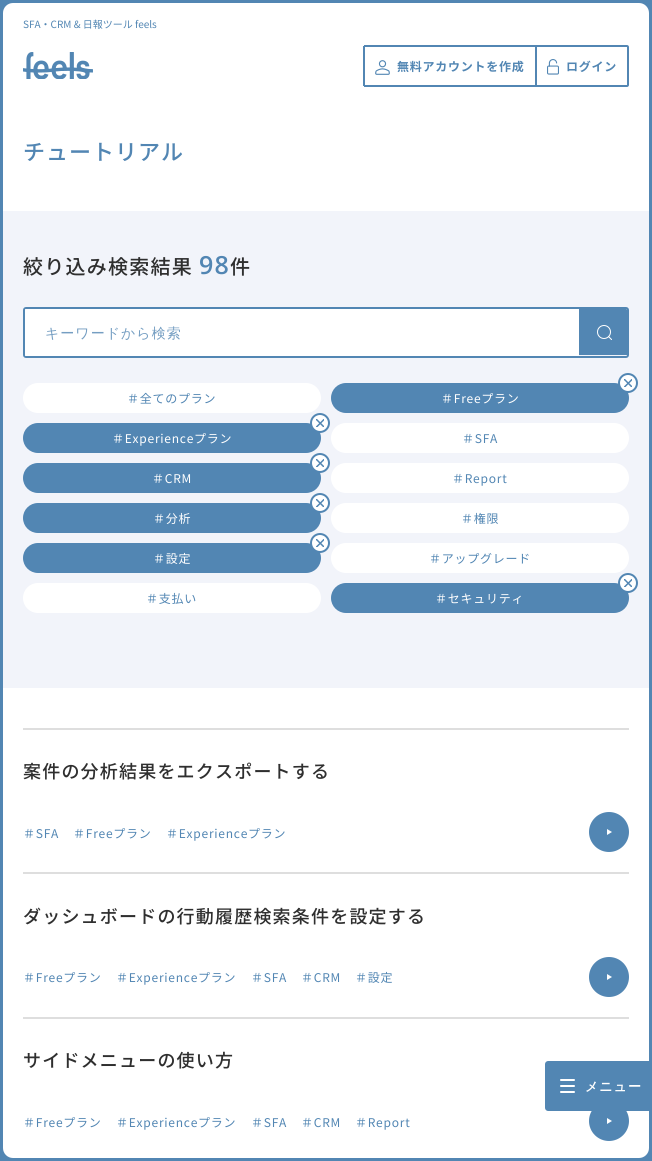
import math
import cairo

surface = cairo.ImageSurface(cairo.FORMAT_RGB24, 652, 1161)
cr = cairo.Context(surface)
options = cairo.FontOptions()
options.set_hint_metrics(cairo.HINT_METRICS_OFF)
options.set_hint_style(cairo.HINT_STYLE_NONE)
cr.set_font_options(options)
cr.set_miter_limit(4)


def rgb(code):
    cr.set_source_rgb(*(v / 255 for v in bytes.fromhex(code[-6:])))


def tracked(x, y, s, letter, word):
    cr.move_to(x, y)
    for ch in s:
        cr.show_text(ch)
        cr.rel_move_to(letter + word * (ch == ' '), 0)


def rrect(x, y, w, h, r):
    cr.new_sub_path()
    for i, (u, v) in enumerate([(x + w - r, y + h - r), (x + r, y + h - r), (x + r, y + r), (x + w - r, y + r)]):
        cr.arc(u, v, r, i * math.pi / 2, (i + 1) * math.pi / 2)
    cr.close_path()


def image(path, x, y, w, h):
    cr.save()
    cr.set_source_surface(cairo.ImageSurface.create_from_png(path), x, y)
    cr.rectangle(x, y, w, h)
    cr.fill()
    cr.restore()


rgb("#ffffff")
cr.paint()
image("img/5.png", 23, 52, 70, 27)
for x, y, w, h, color in [
    (364, 45, 171, 2, "#5286b3"),
    (364, 85, 171, 2, "#5286b3"),
    (363, 46, 2, 40, "#5286b3"),
]:
    rgb(color)
    cr.rectangle(x, y, w, h)
    cr.fill()
image("img/6.png", 375, 60, 15, 15)
cr.new_path()
cr.move_to(536, 46)
cr.line_to(627, 46)
cr.curve_to(627.5, 46, 628, 46.5, 628, 47)
cr.line_to(628, 85)
cr.curve_to(628, 85.5, 627.5, 86, 627, 86)
cr.line_to(536, 86)
cr.close_path()
cr.stroke()
image("img/7.png", 547, 59, 12, 16)
rgb("#f2f4fa")
cr.rectangle(3, 211, 646, 477)
cr.fill()
rrect(24, 308, 604, 49, 2)
rgb("#5286b3")
cr.stroke()
rgb("#ffffff")
cr.new_path()
cr.move_to(26, 309)
cr.line_to(579, 309)
cr.line_to(579, 356)
cr.line_to(26, 356)
cr.curve_to(25.5, 356, 25, 355.5, 25, 355)
cr.line_to(25, 310)
cr.curve_to(25, 309.5, 25.5, 309, 26, 309)
cr.close_path()
cr.fill()
rgb("#5286b3")
cr.new_path()
cr.move_to(579, 309)
cr.line_to(626, 309)
cr.curve_to(626.5, 309, 627, 309.5, 627, 310)
cr.line_to(627, 355)
cr.line_to(579, 355)
cr.close_path()
cr.fill()
cr.arc(604, 332, 6.5, 0, 2 * math.pi)
rgb("#ffffff")
cr.set_line_width(1)
cr.stroke()
cr.save()
cr.rectangle(597, 325, 15, 15)
cr.clip()
cr.new_path()
cr.move_to(612, 340)
cr.line_to(608.5, 336.5)
cr.set_line_cap(cairo.LINE_CAP_ROUND)
cr.set_line_join(cairo.LINE_JOIN_ROUND)
cr.stroke()
cr.restore()
rrect(23, 383, 298, 30, 15)
cr.fill()
rgb("#5286b3")
rrect(331, 383, 298, 30, 15)
cr.fill()
rgb("#ffffff")
cr.arc(628, 383, 9, 0, 2 * math.pi)
cr.fill_preserve()
rgb("#5286b3")
cr.set_line_width(2)
cr.stroke()
cr.save()
cr.rectangle(624, 379, 8, 8)
cr.clip()
cr.new_path()
cr.move_to(624.5, 379.5)
cr.line_to(632, 387)
cr.move_to(632, 379.5)
cr.line_to(624.5, 387)
cr.set_line_width(1.5)
cr.set_line_cap(cairo.LINE_CAP_ROUND)
cr.set_line_join(cairo.LINE_JOIN_ROUND)
cr.stroke()
cr.restore()
rrect(23, 423, 298, 30, 15)
cr.fill()
rgb("#ffffff")
cr.arc(320, 423, 9, 0, 2 * math.pi)
cr.fill_preserve()
rgb("#5286b3")
cr.stroke()
cr.save()
cr.rectangle(316, 419, 8, 8)
cr.clip()
cr.new_path()
cr.move_to(316.5, 419.5)
cr.line_to(324, 427)
cr.move_to(324, 419.5)
cr.line_to(316.5, 427)
cr.set_line_width(1.5)
cr.set_line_cap(cairo.LINE_CAP_ROUND)
cr.set_line_join(cairo.LINE_JOIN_ROUND)
cr.stroke()
cr.restore()
rgb("#ffffff")
rrect(331, 423, 298, 30, 15)
cr.fill()
rgb("#5286b3")
rrect(23, 463, 298, 30, 15)
cr.fill()
rgb("#ffffff")
cr.arc(320, 463, 9, 0, 2 * math.pi)
cr.fill_preserve()
rgb("#5286b3")
cr.stroke()
cr.save()
cr.rectangle(316, 459, 8, 8)
cr.clip()
cr.new_path()
cr.move_to(316.5, 459.5)
cr.line_to(324, 467)
cr.move_to(324, 459.5)
cr.line_to(316.5, 467)
cr.set_line_width(1.5)
cr.set_line_cap(cairo.LINE_CAP_ROUND)
cr.set_line_join(cairo.LINE_JOIN_ROUND)
cr.stroke()
cr.restore()
rgb("#ffffff")
rrect(331, 463, 298, 30, 15)
cr.fill()
rgb("#5286b3")
rrect(23, 503, 298, 30, 15)
cr.fill()
rgb("#ffffff")
cr.arc(320, 503, 9, 0, 2 * math.pi)
cr.fill_preserve()
rgb("#5286b3")
cr.stroke()
cr.save()
cr.rectangle(316, 499, 8, 8)
cr.clip()
cr.new_path()
cr.move_to(316.5, 499.5)
cr.line_to(324, 507)
cr.move_to(324, 499.5)
cr.line_to(316.5, 507)
cr.set_line_width(1.5)
cr.set_line_cap(cairo.LINE_CAP_ROUND)
cr.set_line_join(cairo.LINE_JOIN_ROUND)
cr.stroke()
cr.restore()
rgb("#ffffff")
rrect(331, 503, 298, 30, 15)
cr.fill()
rgb("#5286b3")
rrect(23, 543, 298, 30, 15)
cr.fill()
rgb("#ffffff")
cr.arc(320, 543, 9, 0, 2 * math.pi)
cr.fill_preserve()
rgb("#5286b3")
cr.stroke()
cr.save()
cr.rectangle(316, 539, 8, 8)
cr.clip()
cr.new_path()
cr.move_to(316.5, 539.5)
cr.line_to(324, 547)
cr.move_to(324, 539.5)
cr.line_to(316.5, 547)
cr.set_line_width(1.5)
cr.set_line_cap(cairo.LINE_CAP_ROUND)
cr.set_line_join(cairo.LINE_JOIN_ROUND)
cr.stroke()
cr.restore()
rgb("#ffffff")
rrect(331, 543, 298, 30, 15)
cr.fill()
rrect(23, 583, 298, 30, 15)
cr.fill()
rgb("#5286b3")
rrect(331, 583, 298, 30, 15)
cr.fill()
rgb("#ffffff")
cr.arc(628, 583, 9, 0, 2 * math.pi)
cr.fill_preserve()
rgb("#5286b3")
cr.stroke()
cr.save()
cr.rectangle(624, 579, 8, 8)
cr.clip()
cr.new_path()
cr.move_to(624.5, 579.5)
cr.line_to(632, 587)
cr.move_to(632, 579.5)
cr.line_to(624.5, 587)
cr.set_line_width(1.5)
cr.set_line_cap(cairo.LINE_CAP_ROUND)
cr.set_line_join(cairo.LINE_JOIN_ROUND)
cr.stroke()
cr.restore()
rgb("#dedede")
cr.rectangle(23, 728, 606, 2)
cr.fill()
cr.rectangle(23, 872, 606, 2)
cr.fill()
rgb("#5286b3")
cr.arc(609, 832, 20, 0, 2 * math.pi)
cr.fill()
rgb("#ffffff")
cr.set_fill_rule(cairo.FILL_RULE_EVEN_ODD)
cr.new_path()
cr.move_to(612, 832)
cr.line_to(607, 835)
cr.line_to(607, 829)
cr.close_path()
cr.fill()
rgb("#dedede")
cr.rectangle(23, 1017, 606, 2)
cr.fill()
rgb("#5286b3")
cr.arc(609, 977, 20, 0, 2 * math.pi)
cr.fill()
rgb("#ffffff")
cr.new_path()
cr.move_to(612, 977)
cr.line_to(607, 980)
cr.line_to(607, 974)
cr.close_path()
cr.fill()
rgb("#5286b3")
cr.arc(609, 1121, 20, 0, 2 * math.pi)
cr.fill()
rgb("#ffffff")
cr.new_path()
cr.move_to(612, 1121)
cr.line_to(607, 1124)
cr.line_to(607, 1118)
cr.close_path()
cr.fill()
cr.rectangle(1.5, 1.5, 649, 1158)
rgb("#5286b3")
cr.set_line_width(3)
cr.stroke()
image("img/1.png", 3, 3, 10, 10)
image("img/2.png", 639, 3, 10, 10)
image("img/3.png", 3, 1148, 10, 10)
image("img/4.png", 639, 1148, 10, 10)
cr.new_path()
cr.move_to(548, 1061)
cr.line_to(652, 1061)
cr.line_to(652, 1111)
cr.line_to(548, 1111)
cr.curve_to(546.5, 1111, 545, 1109.5, 545, 1108)
cr.line_to(545, 1064)
cr.curve_to(545, 1062.5, 546.5, 1061, 548, 1061)
cr.close_path()
cr.fill()
rgb("#ffffff")
rrect(560, 1079, 15, 2, 1)
cr.fill()
rrect(560, 1085, 15, 2, 1)
cr.fill()
rrect(560, 1091, 15, 2, 1)
cr.fill()
cr.select_font_face("Noto Sans JP")
cr.set_font_size(10)
rgb("#5286b3")
cr.move_to(23, 28)
cr.show_text("SFA・CRM & 日報ツール feels")
cr.select_font_face("Noto Sans JP", cairo.FONT_SLANT_NORMAL, cairo.FONT_WEIGHT_BOLD)
cr.set_font_size(12)
tracked(397, 71, "無料アカウントを作成", 0.75, 0)
tracked(566, 71, "ログイン", 0.75, 0)
cr.select_font_face("Noto Sans JP Medium")
cr.set_font_size(22)
tracked(23, 160, "チュートリアル", 1, 0)
cr.set_font_size(20)
rgb("#2f2f2f")
tracked(23, 274, "絞り込み検索結果", 1.25, 0)
cr.select_font_face("Open Sans SemiBold")
cr.set_font_size(25)
rgb("#5286b3")
tracked(199, 274, "98", 1.25, 0)
cr.select_font_face("Noto Sans JP Medium")
cr.set_font_size(20)
rgb("#2f2f2f")
tracked(230, 274, "件", 1.25, 0)
cr.select_font_face("WenQuanYi Zen Hei Medium")
cr.set_font_size(14)
rgb("#759ec2")
tracked(45, 338, "キーワードから検索", 1, 0)
cr.select_font_face("Noto Sans JP")
cr.set_font_size(12)
rgb("#5286b3")
tracked(127, 403, "＃全てのプラン", 0.75, 0)
rgb("#ffffff")
tracked(441, 403, "＃Freeプラン", 0.75, 0)
tracked(112, 443, "＃Experienceプラン", 0.75, 0)
rgb("#5286b3")
tracked(462, 443, "＃SFA", 0.75, 0)
rgb("#ffffff")
tracked(152, 483, "＃CRM", 0.75, 0)
rgb("#5286b3")
tracked(452, 483, "＃Report", 0.75, 0)
rgb("#ffffff")
tracked(153, 523, "＃分析", 0.75, 0)
rgb("#5286b3")
tracked(461, 523, "＃権限", 0.75, 0)
rgb("#ffffff")
tracked(153, 563, "＃設定", 0.75, 0)
rgb("#5286b3")
tracked(429, 563, "＃アップグレード", 0.75, 0)
tracked(146, 603, "＃支払い", 0.75, 0)
rgb("#ffffff")
tracked(435, 603, "＃セキュリティ", 0.75, 0)
cr.select_font_face("Noto Sans JP Medium")
cr.set_font_size(18)
rgb("#2f2f2f")
tracked(23, 778, "案件の分析結果をエクスポートする", 1.2, 0)
cr.select_font_face("Noto Sans JP")
cr.set_font_size(12)
rgb("#5286b3")
for x, y, s in [
    (23, 838, "＃SFA"),
    (73, 838, "＃Freeプラン"),
    (166, 838, "＃Experienceプラン"),
]:
    tracked(x, y, s, 0.75, 0)
cr.select_font_face("Noto Sans JP Medium")
cr.set_font_size(18)
rgb("#2f2f2f")
tracked(23, 923, "ダッシュボードの行動履歴検索条件を設定する", 1.2, 0)
cr.select_font_face("Noto Sans JP")
cr.set_font_size(12)
rgb("#5286b3")
for x, y, s in [
    (23, 982, "＃Freeプラン"),
    (116, 982, "＃Experienceプラン"),
    (251, 982, "＃SFA"),
    (301, 982, "＃CRM"),
    (355, 982, "＃設定"),
]:
    tracked(x, y, s, 0.75, 0)
cr.select_font_face("Noto Sans JP Medium")
cr.set_font_size(18)
rgb("#2f2f2f")
tracked(23, 1067, "サイドメニューの使い方", 1.2, 0)
cr.select_font_face("Noto Sans JP")
cr.set_font_size(12)
rgb("#5286b3")
for x, y, s in [
    (23, 1127, "＃Freeプラン"),
    (116, 1127, "＃Experienceプラン"),
    (251, 1127, "＃SFA"),
    (301, 1127, "＃CRM"),
    (355, 1127, "＃Report"),
]:
    tracked(x, y, s, 0.75, 0)
cr.select_font_face("WenQuanYi Zen Hei", cairo.FONT_SLANT_NORMAL, cairo.FONT_WEIGHT_BOLD)
cr.set_font_size(13)
rgb("#ffffff")
tracked(585, 1091, "メニュー", 1, 0)
surface.write_to_png("page.png")
